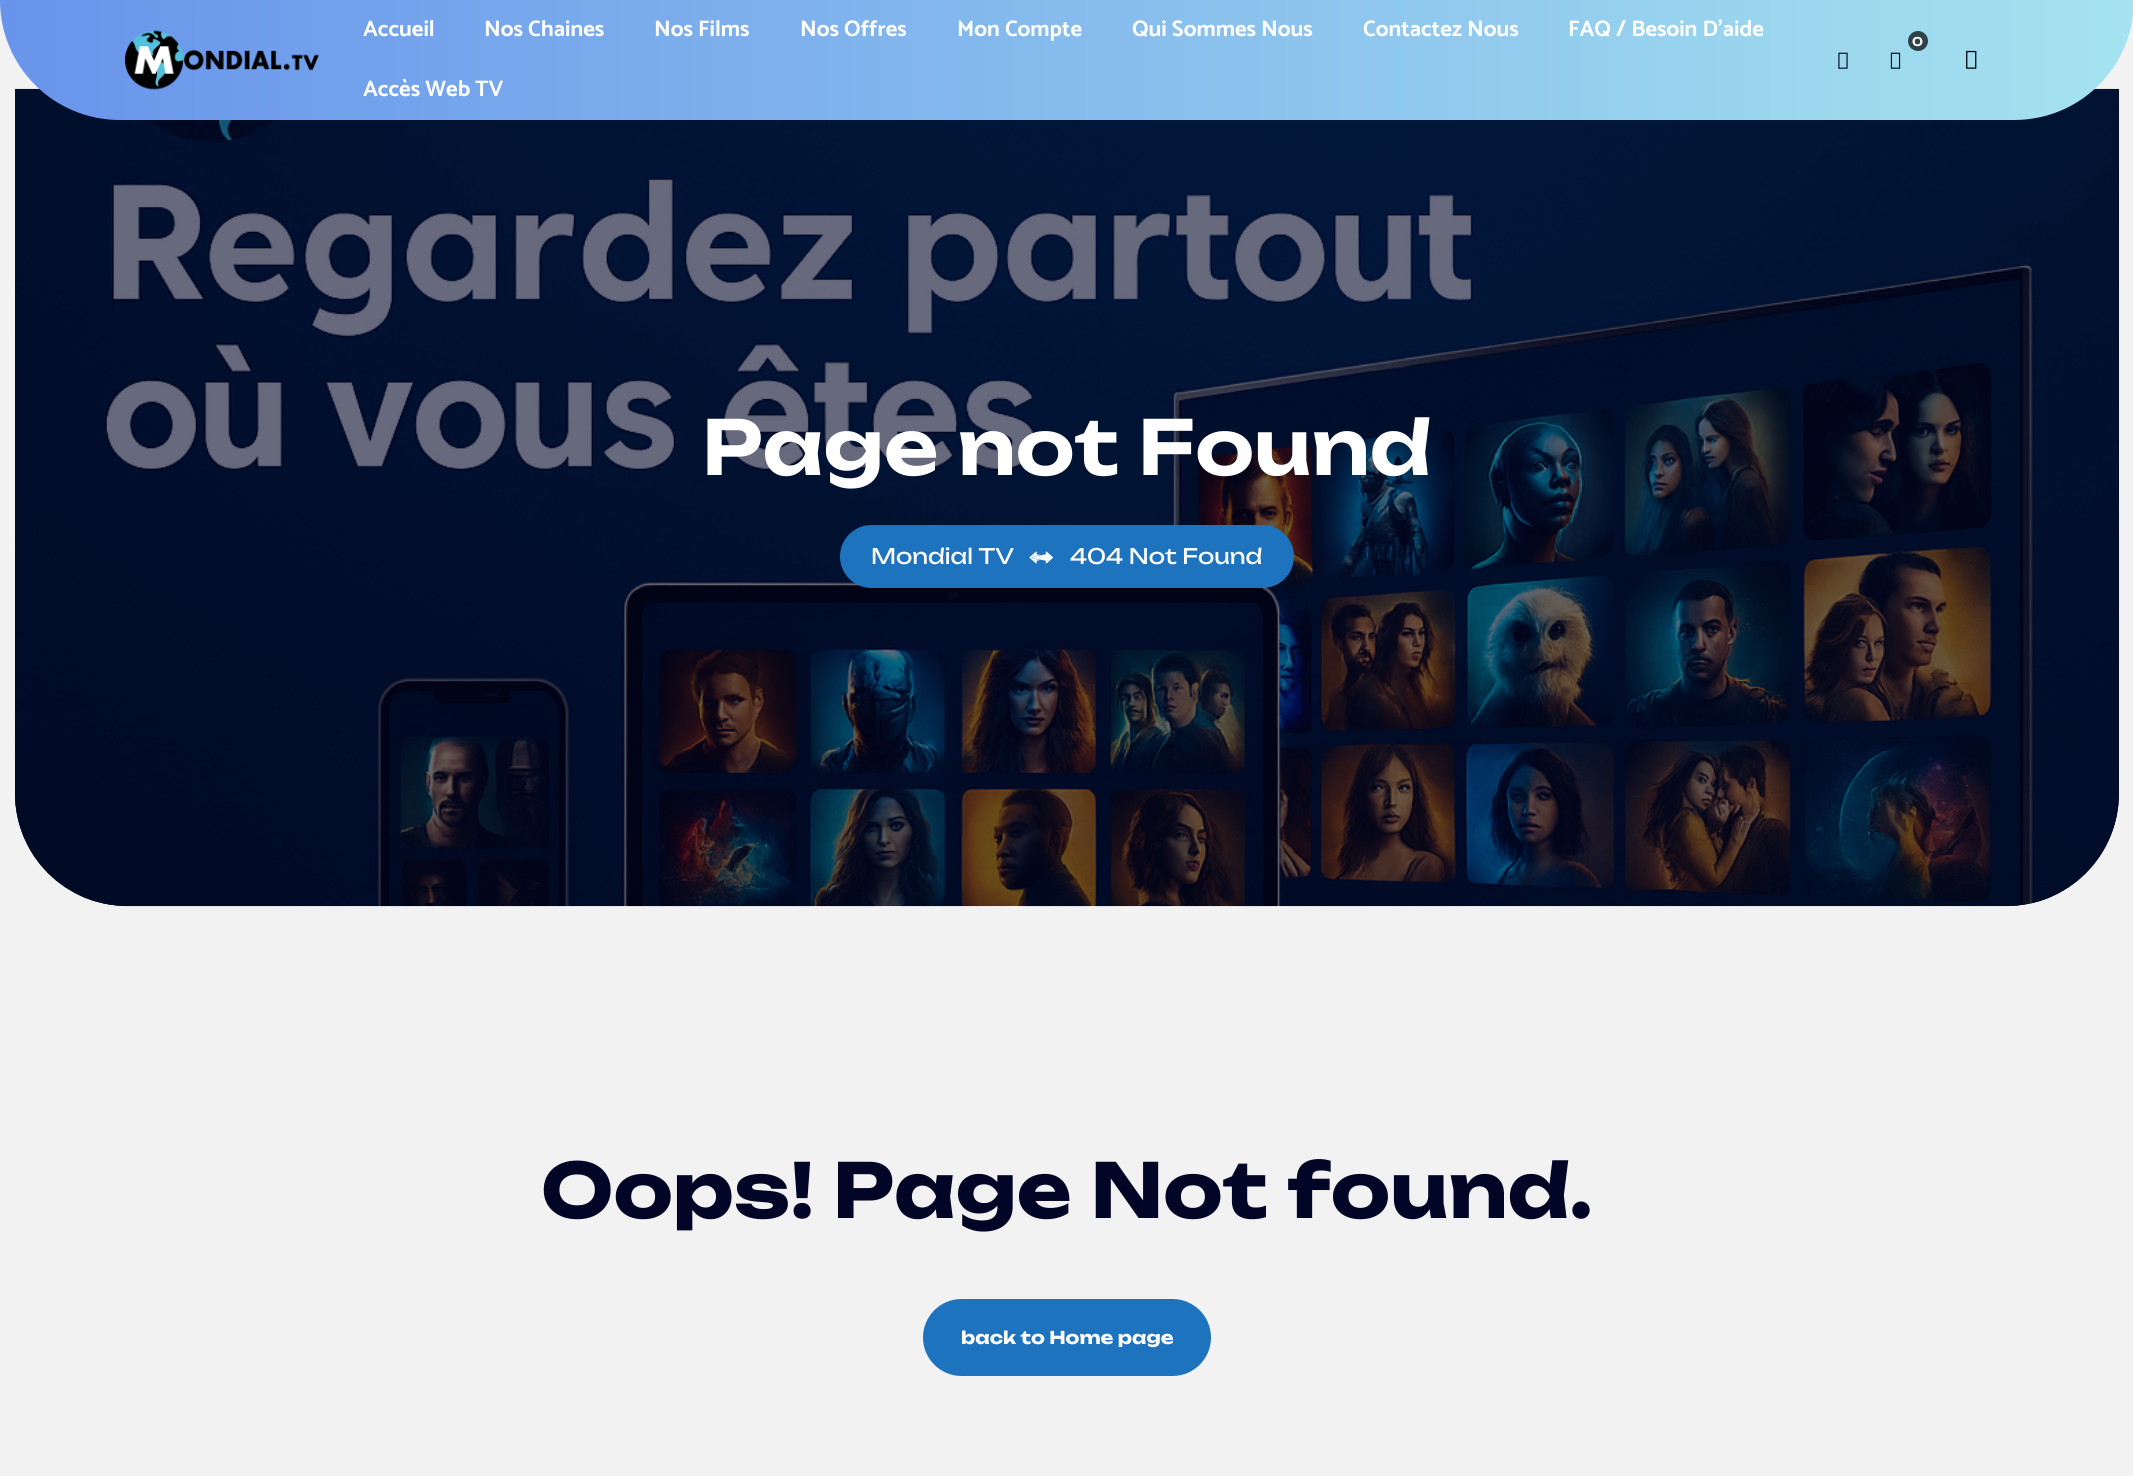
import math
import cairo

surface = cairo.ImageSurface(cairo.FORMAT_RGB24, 2133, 1476)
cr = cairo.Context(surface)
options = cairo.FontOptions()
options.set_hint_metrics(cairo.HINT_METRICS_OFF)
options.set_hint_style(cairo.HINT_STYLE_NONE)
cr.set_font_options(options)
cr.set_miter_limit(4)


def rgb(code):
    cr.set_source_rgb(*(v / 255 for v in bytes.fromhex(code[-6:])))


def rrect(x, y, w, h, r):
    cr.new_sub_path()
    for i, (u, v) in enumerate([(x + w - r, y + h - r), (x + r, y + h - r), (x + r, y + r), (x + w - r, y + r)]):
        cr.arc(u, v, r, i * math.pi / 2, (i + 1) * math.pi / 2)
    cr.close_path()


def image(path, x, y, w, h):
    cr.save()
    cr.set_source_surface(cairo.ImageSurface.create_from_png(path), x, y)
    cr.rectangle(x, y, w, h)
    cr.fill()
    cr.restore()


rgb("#f2f2f2")
cr.paint()
rgb("#020626")
cr.new_path()
cr.move_to(15, 89)
cr.line_to(2119, 89)
cr.line_to(2119, 793)
cr.curve_to(2119, 855.5, 2068.5, 906, 2006, 906)
cr.line_to(128, 906)
cr.curve_to(65.5, 906, 15, 855.5, 15, 793)
cr.close_path()
cr.fill()
image("img/5.png", 15, 88, 2104, 819)
cr.set_source_rgba(0.008, 0.024, 0.149, 0.6)
cr.new_path()
cr.move_to(15, 89)
cr.line_to(2119, 89)
cr.line_to(2119, 793)
cr.curve_to(2119, 855.5, 2068.5, 906, 2006, 906)
cr.line_to(128, 906)
cr.curve_to(65.5, 906, 15, 855.5, 15, 793)
cr.close_path()
cr.fill()
gradient = cairo.LinearGradient(0, 60, 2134, 60)
gradient.add_color_stop_rgba(0, 0.408, 0.58, 0.922, 1)
gradient.add_color_stop_rgba(1, 0.643, 0.89, 0.937, 1)
cr.set_source(gradient)
cr.new_path()
cr.move_to(0, 0)
cr.line_to(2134, 0)
cr.curve_to(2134, 66.5, 2080.5, 120, 2014, 120)
cr.line_to(120, 120)
cr.curve_to(53.5, 120, 0, 66.5, 0, 0)
cr.close_path()
cr.fill()
image("img/1.png", 125, 30, 194, 60)
rgb("#2f4248")
cr.arc(1918, 41, 10, 0, 2 * math.pi)
cr.fill()
image("img/2.png", 1890, 52, 11, 17)
image("img/3.png", 1838, 52, 10, 17)
image("img/4.png", 1966, 50, 11, 19)
rgb("#1e73be")
rrect(840, 525, 454, 63, 31.5)
cr.fill()
image("img/6.png", 1029, 551, 25, 13)
rrect(923, 1299, 288, 77, 38.5)
cr.fill()
cr.select_font_face("Catamaran", cairo.FONT_SLANT_NORMAL, cairo.FONT_WEIGHT_BOLD)
cr.set_font_size(22.5)
rgb("#ffffff")
for x, y, s in [
    (363, 36, "Accueil"),
    (484, 36, "Nos Chaines"),
    (654, 36, "Nos Films"),
    (800, 36, "Nos Offres"),
    (957, 36, "Mon Compte"),
    (1132, 36, "Qui Sommes Nous"),
    (1363, 36, "Contactez Nous"),
    (1568, 36, "FAQ / Besoin D’aide"),
    (363, 96, "Accès Web TV"),
]:
    cr.move_to(x, y)
    cr.show_text(s)
cr.select_font_face("Unbounded SemiBold")
cr.set_font_size(12)
cr.move_to(1912, 46)
cr.show_text("0")
cr.set_font_size(75)
cr.move_to(702, 475)
cr.show_text("Page not Found")
cr.select_font_face("Unbounded")
cr.set_font_size(21.25)
cr.move_to(871, 564)
cr.show_text("Mondial TV")
cr.move_to(1070, 564)
cr.show_text("404 Not Found")
cr.select_font_face("Unbounded", cairo.FONT_SLANT_NORMAL, cairo.FONT_WEIGHT_BOLD)
cr.set_font_size(75)
rgb("#020626")
cr.move_to(541, 1218)
cr.show_text("Oops! Page Not found.")
cr.set_font_size(17.5)
rgb("#ffffff")
cr.move_to(961, 1344)
cr.show_text("back to Home page")
surface.write_to_png("page.png")
